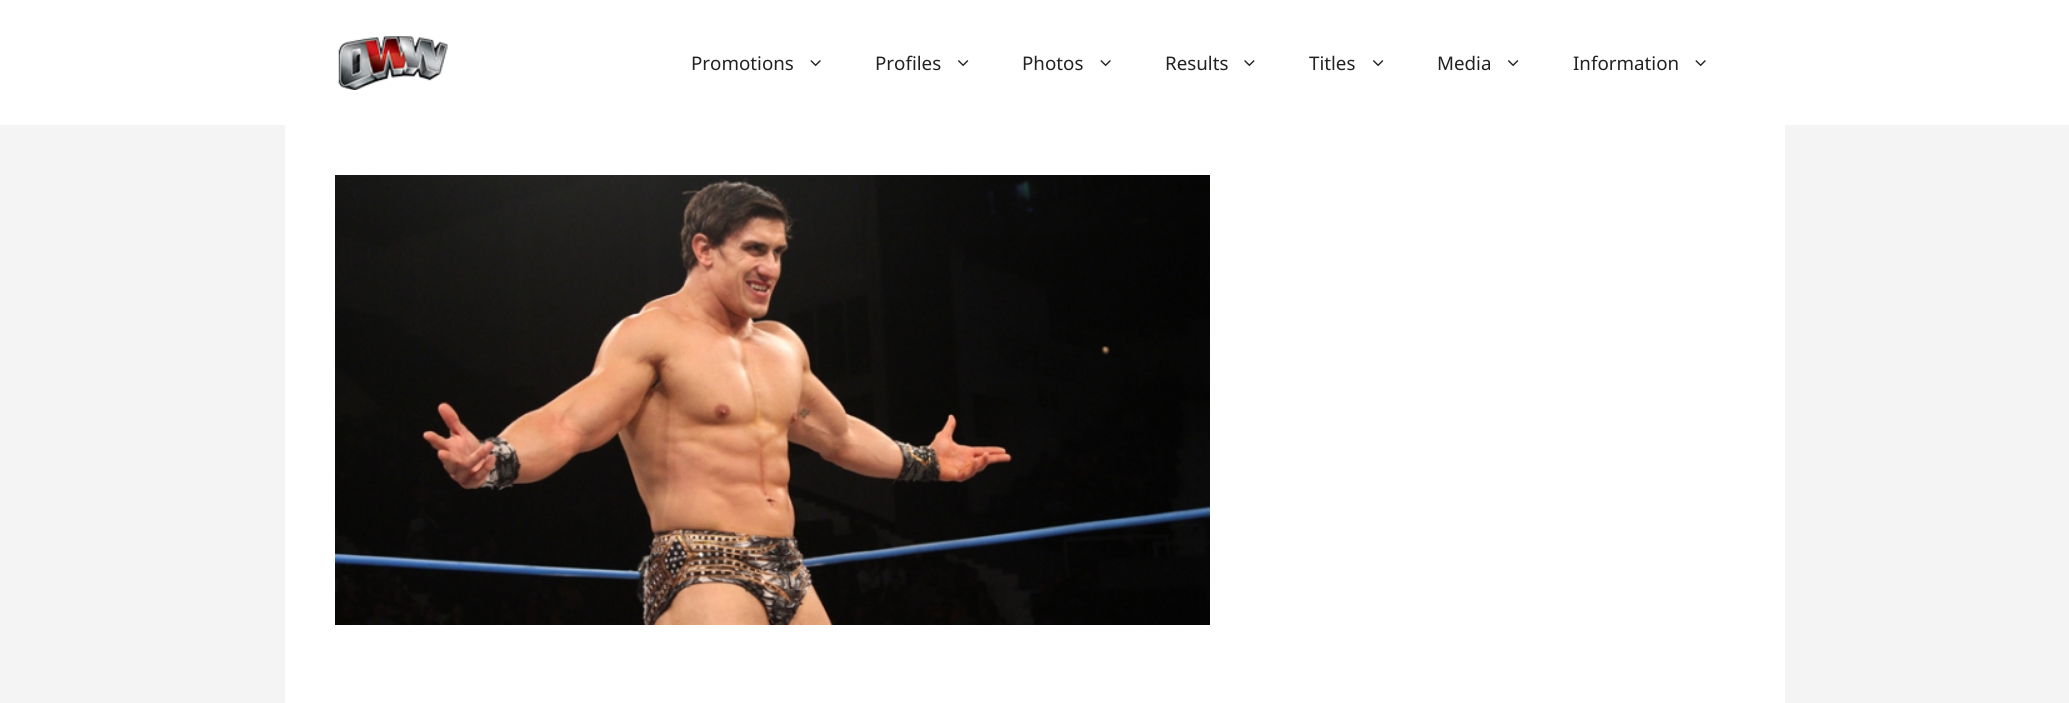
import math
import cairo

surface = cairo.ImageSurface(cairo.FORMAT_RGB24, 2069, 703)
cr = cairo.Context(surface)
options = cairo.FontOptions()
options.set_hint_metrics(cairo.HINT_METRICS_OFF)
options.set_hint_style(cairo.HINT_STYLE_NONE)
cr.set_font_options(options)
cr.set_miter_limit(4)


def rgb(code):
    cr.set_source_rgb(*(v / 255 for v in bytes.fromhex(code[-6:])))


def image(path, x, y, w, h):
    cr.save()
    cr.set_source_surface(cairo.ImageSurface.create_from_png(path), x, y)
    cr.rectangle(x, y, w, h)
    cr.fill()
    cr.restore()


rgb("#f4f4f4")
cr.paint()
rgb("#ffffff")
cr.rectangle(0, 0, 2069, 125)
cr.fill()
image("img/1.png", 338, 36, 110, 54)
image("img/2.png", 810, 60, 11, 7)
image("img/3.png", 958, 60, 11, 7)
image("img/2.png", 1100, 60, 11, 7)
image("img/4.png", 1244, 60, 11, 7)
image("img/3.png", 1373, 60, 11, 7)
image("img/3.png", 1508, 60, 11, 7)
image("img/2.png", 1695, 60, 11, 7)
cr.rectangle(285, 125, 1500, 578)
cr.fill()
image("img/5.png", 335, 175, 875, 450)
cr.select_font_face("Noto Sans")
cr.set_font_size(18.75)
rgb("#222222")
for x, y, s in [
    (691, 70, "Promotions"),
    (875, 70, "Profiles"),
    (1022, 70, "Photos"),
    (1165, 70, "Results"),
    (1309, 70, "Titles"),
    (1437, 70, "Media"),
    (1573, 70, "Information"),
]:
    cr.move_to(x, y)
    cr.show_text(s)
surface.write_to_png("page.png")
